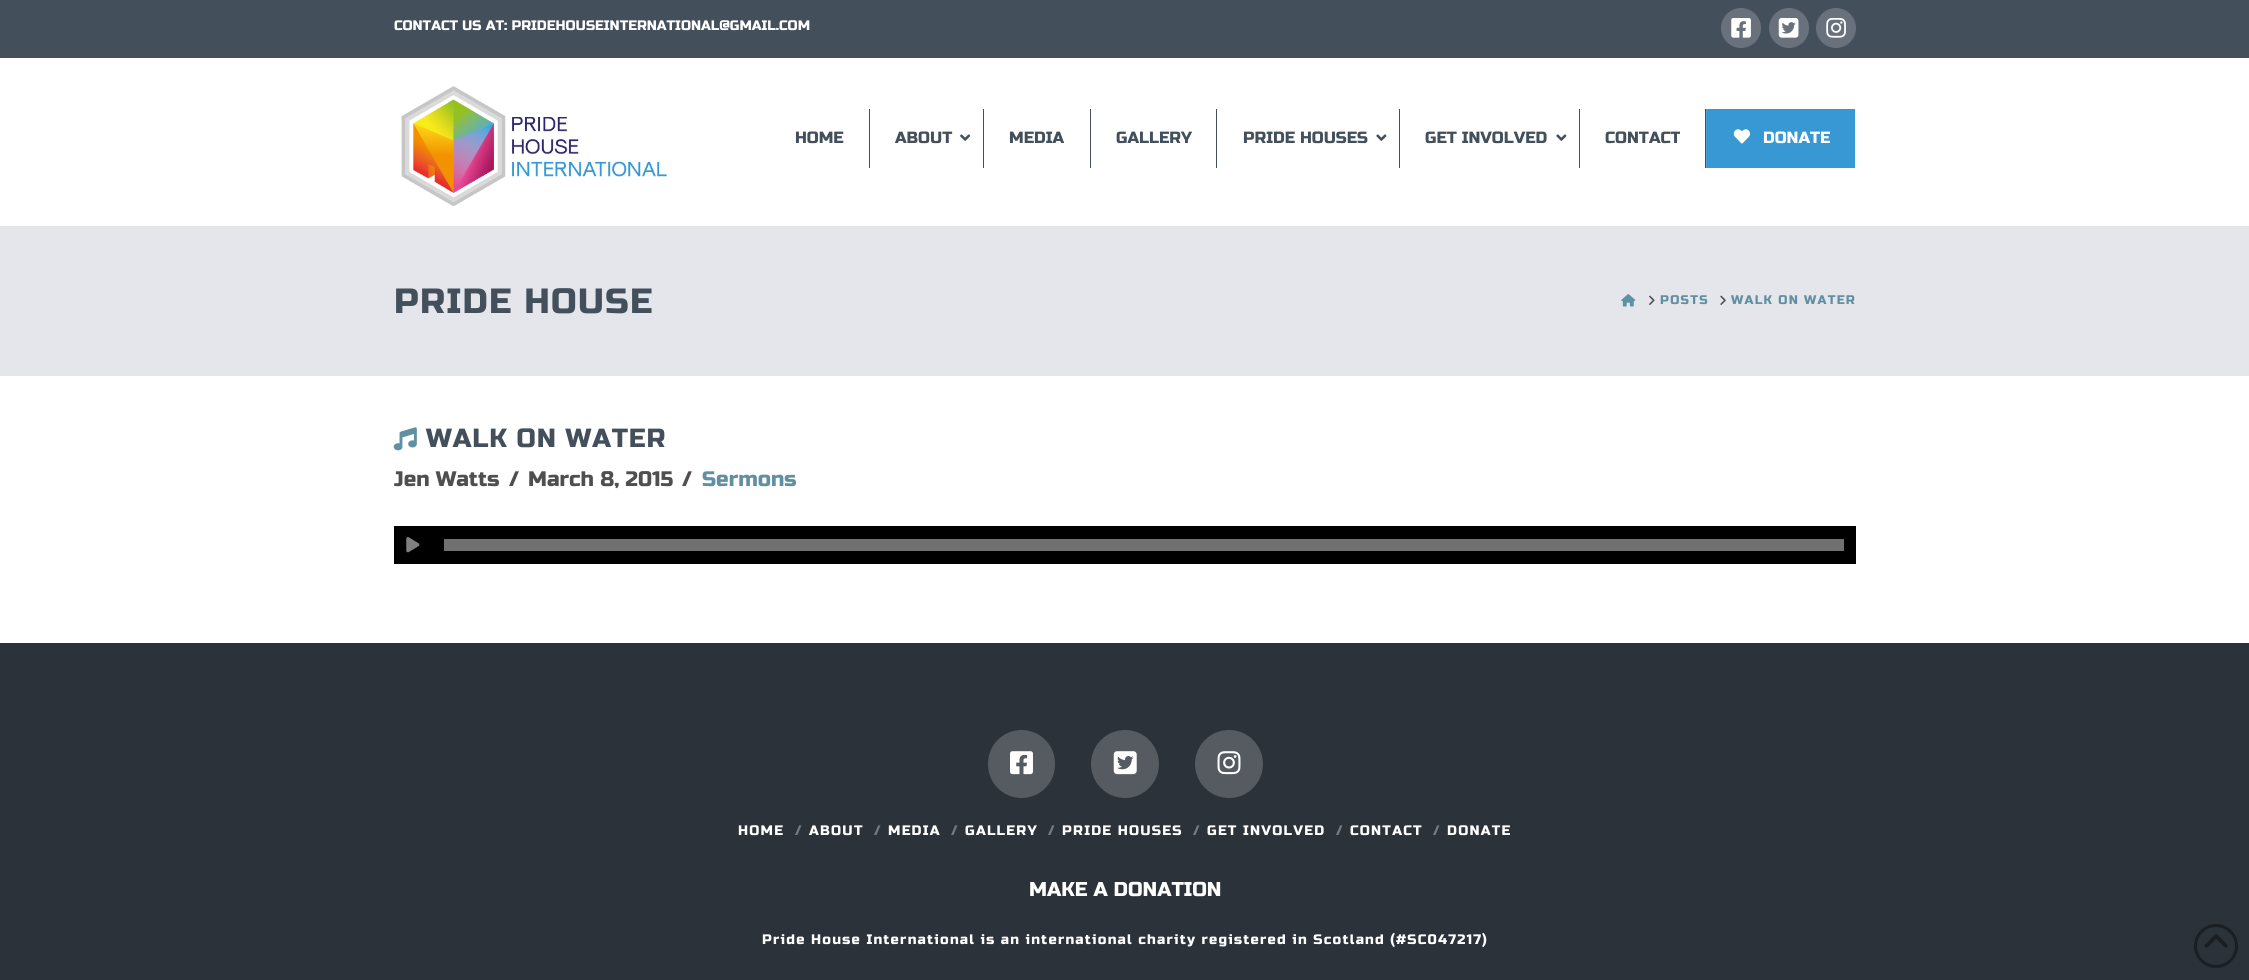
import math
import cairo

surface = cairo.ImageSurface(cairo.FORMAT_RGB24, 2249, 980)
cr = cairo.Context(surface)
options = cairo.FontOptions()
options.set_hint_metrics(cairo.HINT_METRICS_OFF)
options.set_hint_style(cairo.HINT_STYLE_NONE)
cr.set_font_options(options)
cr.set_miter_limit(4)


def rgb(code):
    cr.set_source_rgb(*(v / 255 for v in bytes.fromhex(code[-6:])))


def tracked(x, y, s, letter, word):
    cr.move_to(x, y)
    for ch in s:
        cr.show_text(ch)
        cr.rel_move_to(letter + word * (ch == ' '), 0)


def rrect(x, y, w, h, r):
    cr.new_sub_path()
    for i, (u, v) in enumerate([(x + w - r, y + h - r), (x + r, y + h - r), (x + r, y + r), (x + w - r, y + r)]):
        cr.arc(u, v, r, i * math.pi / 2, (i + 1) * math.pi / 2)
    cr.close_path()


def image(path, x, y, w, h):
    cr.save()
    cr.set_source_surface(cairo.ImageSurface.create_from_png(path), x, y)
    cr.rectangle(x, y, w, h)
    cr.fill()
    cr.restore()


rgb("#ffffff")
cr.paint()
rgb("#434f5b")
cr.rectangle(0, 0, 2249, 58)
cr.fill()
rgb("#69727c")
cr.arc(1741, 28, 20, 0, 2 * math.pi)
cr.fill()
image("img/1.png", 1731, 18, 20, 20)
cr.arc(1789, 28, 20, 0, 2 * math.pi)
cr.fill()
image("img/2.png", 1778, 18, 21, 20)
cr.arc(1836, 28, 20, 0, 2 * math.pi)
cr.fill()
image("img/3.png", 1826, 18, 20, 20)
image("img/4.png", 401, 86, 266, 121)
rgb("#434f5b")
cr.rectangle(869, 109, 1, 59)
cr.fill()
image("img/5.png", 960, 134, 11, 7)
for x, y, w, h, color in [
    (983, 109, 1, 59, "#434f5b"),
    (1090, 109, 1, 59, "#434f5b"),
    (1216, 109, 1, 59, "#434f5b"),
]:
    rgb(color)
    cr.rectangle(x, y, w, h)
    cr.fill()
image("img/6.png", 1376, 134, 11, 7)
cr.rectangle(1399, 109, 1, 59)
cr.fill()
image("img/6.png", 1556, 134, 11, 7)
for x, y, w, h, color in [
    (1579, 109, 1, 59, "#434f5b"),
    (1707, 109, 148, 59, "#3898d4"),
    (1706, 109, 1, 59, "#4ca2d8"),
    (1705, 109, 1, 59, "#434f5b"),
]:
    rgb(color)
    cr.rectangle(x, y, w, h)
    cr.fill()
image("img/7.png", 1733, 129, 17, 15)
rgb("#e4e6ec")
cr.rectangle(0, 226, 2249, 150)
cr.fill()
image("img/8.png", 1621, 294, 15, 13)
image("img/9.png", 1649, 295, 6, 10)
image("img/10.png", 1720, 295, 6, 10)
image("img/11.png", 393, 427, 24, 24)
rgb("#000000")
cr.rectangle(394, 526, 1462, 38)
cr.fill()
image("img/12.png", 406, 537, 14, 16)
rgb("#707070")
cr.rectangle(444, 539, 1400, 12)
cr.fill()
rgb("#2b323a")
cr.rectangle(0, 643, 2249, 337)
cr.fill()
rgb("#555b61")
rrect(988, 730, 67, 68, 33.5)
cr.fill()
image("img/13.png", 1010, 751, 23, 24)
cr.arc(1125, 764, 34, 0, 2 * math.pi)
cr.fill()
image("img/14.png", 1113, 751, 24, 24)
cr.arc(1229, 764, 34, 0, 2 * math.pi)
cr.fill()
image("img/15.png", 1217, 751, 24, 24)
cr.arc(2216, 946, 20.5, 0, 2 * math.pi)
rgb("#1b1f24")
cr.set_line_width(3)
cr.stroke()
image("img/16.png", 2204, 934, 24, 14)
cr.select_font_face("Russo One")
cr.set_font_size(13.75)
rgb("#ffffff")
cr.move_to(394, 30)
cr.show_text("CONTACT US AT: PRIDEHOUSEINTERNATIONAL@GMAIL.COM")
cr.set_font_size(16.25)
rgb("#434f5b")
for x, y, s in [
    (795, 143, "HOME"),
    (895, 143, "ABOUT"),
    (1009, 143, "MEDIA"),
    (1116, 143, "GALLERY"),
    (1243, 143, "PRIDE HOUSES"),
    (1425, 143, "GET INVOLVED"),
    (1605, 143, "CONTACT"),
]:
    cr.move_to(x, y)
    cr.show_text(s)
rgb("#ffffff")
cr.move_to(1763, 143)
cr.show_text("DONATE")
cr.set_font_size(35)
rgb("#434f5b")
tracked(394, 313, "PRIDE HOUSE", 1.25, 0)
cr.set_font_size(12.5)
rgb("#6190a2")
tracked(1660, 304, "POSTS", 1.25, 0)
tracked(1731, 304, "WALK ON WATER", 1.25, 0)
cr.set_font_size(26.25)
rgb("#434f5b")
tracked(426, 447, "WALK ON WATER", 0.9, 0)
cr.set_font_size(21)
rgb("#4f4f4f")
for x, y, s in [
    (394, 486, "Jen Watts"),
    (509, 486, "/"),
    (528, 486, "March 8, 2015"),
    (682, 486, "/"),
]:
    cr.move_to(x, y)
    cr.show_text(s)
rgb("#6190a2")
cr.move_to(702, 486)
cr.show_text("Sermons")
cr.set_font_size(13.75)
rgb("#ffffff")
tracked(738, 835, "HOME", 1.25, 0)
rgb("#757a7f")
cr.move_to(795, 835)
cr.show_text("/")
rgb("#ffffff")
tracked(809, 835, "ABOUT", 1.25, 0)
rgb("#757a7f")
cr.move_to(874, 835)
cr.show_text("/")
rgb("#ffffff")
tracked(888, 835, "MEDIA", 1.25, 0)
rgb("#757a7f")
cr.move_to(951, 835)
cr.show_text("/")
rgb("#ffffff")
tracked(965, 835, "GALLERY", 1.25, 0)
rgb("#757a7f")
cr.move_to(1048, 835)
cr.show_text("/")
rgb("#ffffff")
tracked(1062, 835, "PRIDE HOUSES", 1.25, 0)
rgb("#757a7f")
cr.move_to(1193, 835)
cr.show_text("/")
rgb("#ffffff")
tracked(1207, 835, "GET INVOLVED", 1.25, 0)
rgb("#757a7f")
cr.move_to(1336, 835)
cr.show_text("/")
rgb("#ffffff")
tracked(1350, 835, "CONTACT", 1.25, 0)
rgb("#757a7f")
cr.move_to(1433, 835)
cr.show_text("/")
rgb("#ffffff")
tracked(1447, 835, "DONATE", 1.25, 0)
cr.set_font_size(20)
cr.move_to(1029, 896)
cr.show_text("MAKE A DONATION")
cr.set_font_size(13.75)
tracked(762, 944, "Pride House International is an international charity registered in Scotland (#SC047217)", 1.25, 0)
surface.write_to_png("page.png")
